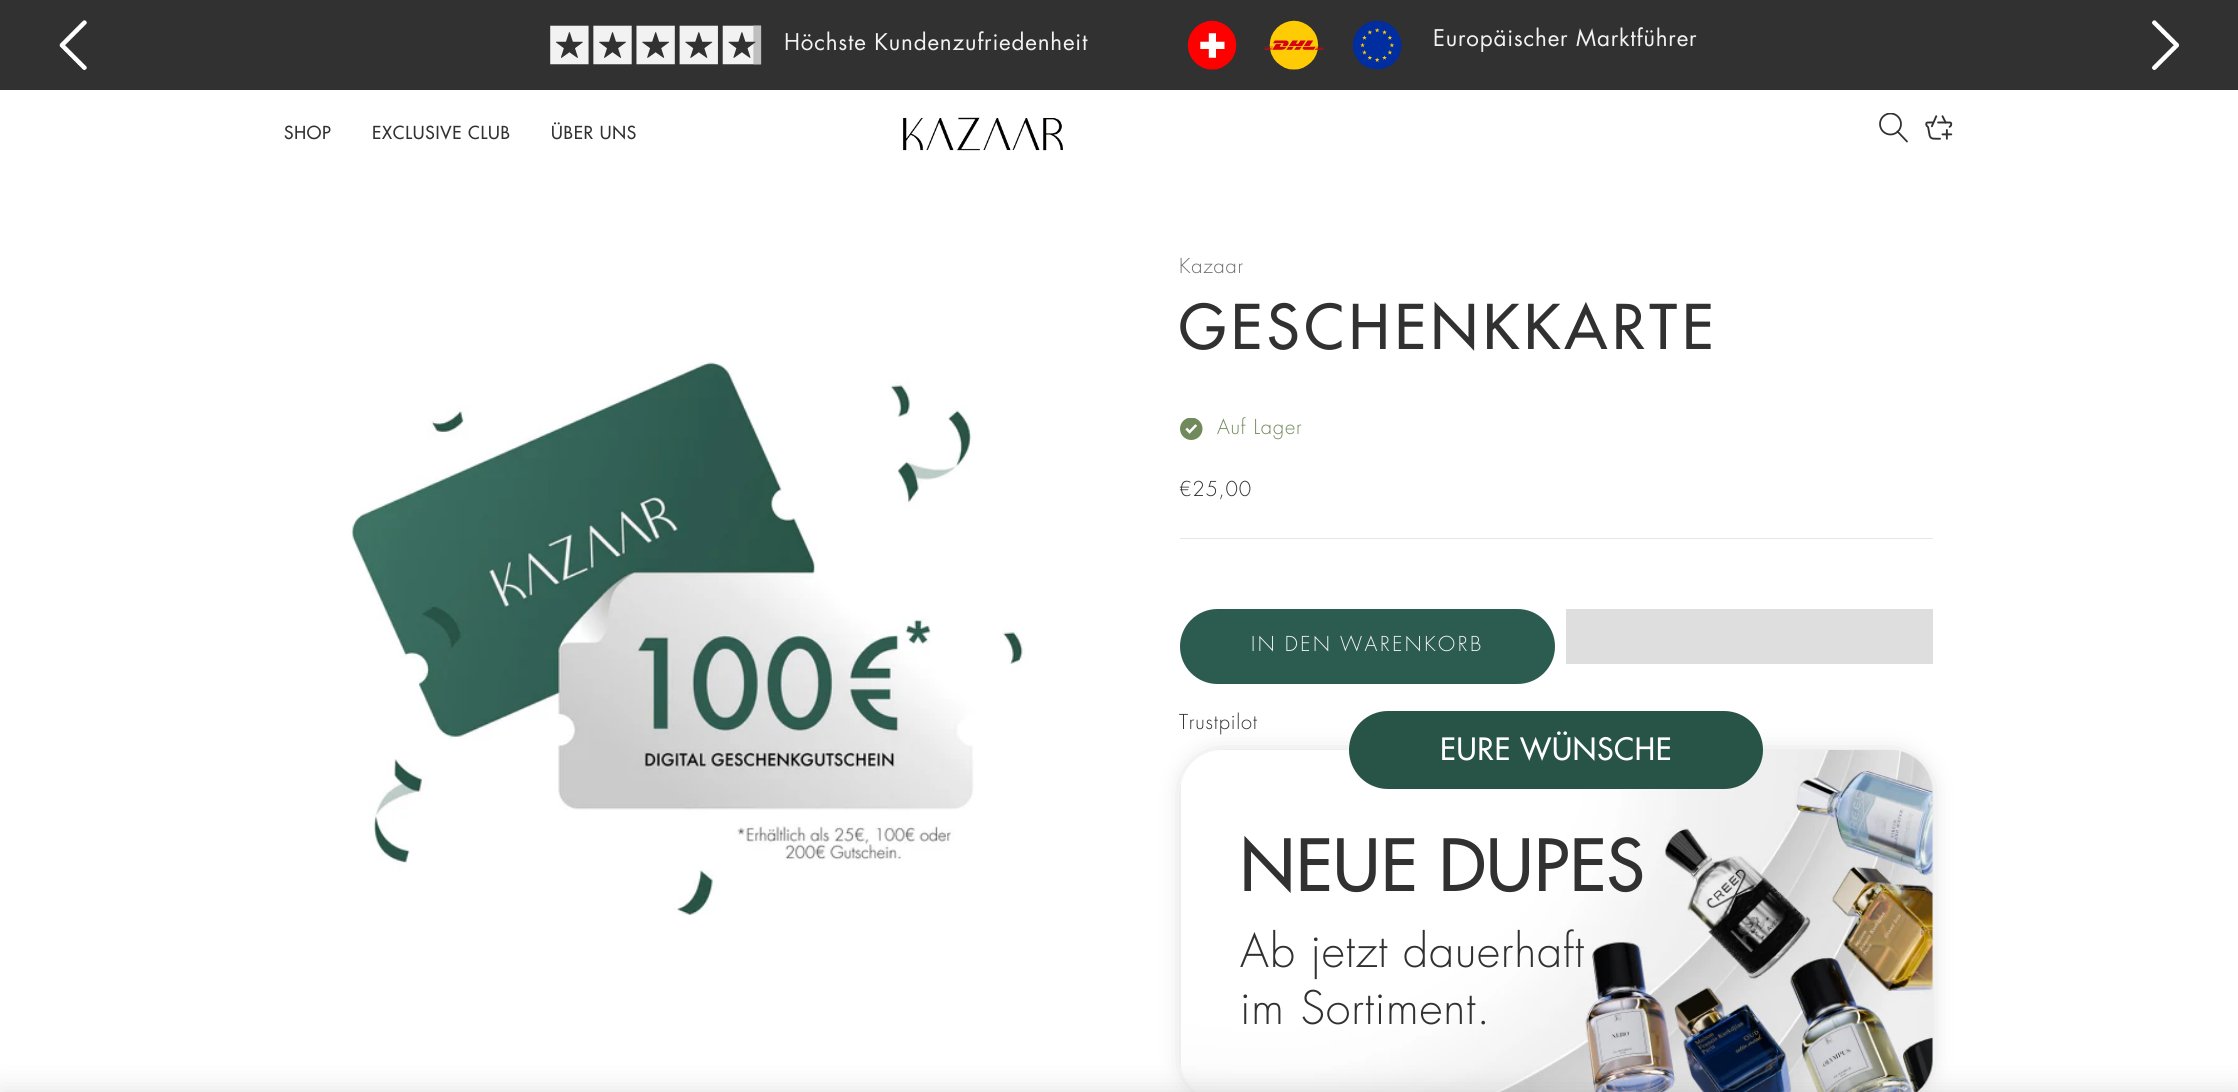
import math
import cairo

surface = cairo.ImageSurface(cairo.FORMAT_RGB24, 2238, 1092)
cr = cairo.Context(surface)
options = cairo.FontOptions()
options.set_hint_metrics(cairo.HINT_METRICS_OFF)
options.set_hint_style(cairo.HINT_STYLE_NONE)
cr.set_font_options(options)
cr.set_miter_limit(4)


def rgb(code):
    cr.set_source_rgb(*(v / 255 for v in bytes.fromhex(code[-6:])))


def tracked(x, y, s, letter, word):
    cr.move_to(x, y)
    for ch in s:
        cr.show_text(ch)
        cr.rel_move_to(letter + word * (ch == ' '), 0)


def rrect(x, y, w, h, r):
    cr.new_sub_path()
    for i, (u, v) in enumerate([(x + w - r, y + h - r), (x + r, y + h - r), (x + r, y + r), (x + w - r, y + r)]):
        cr.arc(u, v, r, i * math.pi / 2, (i + 1) * math.pi / 2)
    cr.close_path()


def soft_shadow(x, y, w, h, r, blur, alpha):
    cr.push_group_with_content(cairo.CONTENT_ALPHA)
    cr.set_operator(cairo.OPERATOR_SOURCE)
    for i in range(15, -16, -2):
        e = blur * i / 6
        if min(w, h) + 2 * e > 0:
            cr.set_source_rgba(0, 0, 0, alpha * math.erfc((i - 1) / 8.5) / 2)
            rrect(x - e, y - e, w + 2 * e, h + 2 * e, max(0, min(r + e + blur * .6, min(w, h) / 2 + e)))
            cr.fill()
    cr.mask(cr.pop_group())


def image(path, x, y, w, h):
    cr.save()
    cr.set_source_surface(cairo.ImageSurface.create_from_png(path), x, y)
    cr.rectangle(x, y, w, h)
    cr.fill()
    cr.restore()


rgb("#ffffff")
cr.paint()
rgb("#323131")
cr.rectangle(0, 0, 2238, 90)
cr.fill()
image("img/1.png", 59, 20, 28, 50)
image("img/2.png", 550, 20, 852, 50)
image("img/3.png", 2152, 20, 27, 50)
image("img/4.png", 903, 117, 160, 34)
cr.new_path()
cr.move_to(1897.5, 131.5)
cr.line_to(1907, 141.5)
cr.set_line_width(1.8)
cr.set_line_cap(cairo.LINE_CAP_ROUND)
cr.stroke()
cr.save()
cr.rectangle(1879, 113, 30, 30)
cr.clip()
cr.arc(1890.5, 124, 10.5, 0, 2 * math.pi)
cr.set_line_cap(cairo.LINE_CAP_BUTT)
cr.stroke()
cr.restore()
image("img/5.png", 1925, 115, 28, 25)
image("img/6.png", 349, 362, 681, 553)
image("img/7.png", 1180, 418, 23, 22)
rgb("#e6e6e6")
cr.rectangle(1180, 538, 753, 1)
cr.fill()
rgb("#2c5c4f")
rrect(1180, 609, 375, 75, 37.5)
cr.fill()
rgb("#dedede")
cr.rectangle(1566, 609, 367, 55)
cr.fill()
rgb("#434343")
soft_shadow(1185, 755, 743, 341, 34, 12, 0.25)
image("img/8.png", 1181, 750, 752, 342)
rgb("#285347")
rrect(1349, 711, 414, 78, 39)
cr.fill()
rgb("#000000")
soft_shadow(0, 1088, 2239, 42, 0, 12.5, 0.1)
cr.select_font_face("Futura")
cr.set_font_size(22.4)
rgb("#f2f2f2")
tracked(1433, 46, "Europäischer Marktführer", 0.8, 0)
tracked(784, 50, "Höchste Kundenzufriedenheit", 0.8, 0)
cr.select_font_face("Futura Medium")
cr.set_font_size(17.5)
rgb("#323131")
for x, y, s in [
    (284, 139, "SHOP"),
    (372, 139, "EXCLUSIVE CLUB"),
    (551, 139, "ÜBER UNS"),
]:
    tracked(x, y, s, 0.8, 0)
cr.select_font_face("Futura Light")
cr.set_font_size(20)
rgb("#706f6f")
tracked(1179, 273, "Kazaar", 0.8, 0)
cr.select_font_face("Futura Medium")
cr.set_font_size(60)
rgb("#323131")
tracked(1179, 349, "GESCHENKKARTE", 5, 0)
cr.select_font_face("Futura Light")
cr.set_font_size(20)
rgb("#708a5c")
tracked(1217, 434, "Auf Lager", 0.8, 0)
rgb("#323131")
tracked(1179, 496, "€25,00", 0.8, 0)
rgb("#f2f2f2")
tracked(1251, 651, "IN DEN WARENKORB", 2.5, -1)
rgb("#323131")
tracked(1179, 729, "Trustpilot", 0.8, 0)
cr.select_font_face("Futura Medium")
cr.set_font_size(30)
rgb("#ffffff")
tracked(1440, 760, "EURE WÜNSCHE", 0.8, 0)
cr.set_font_size(70)
rgb("#323131")
tracked(1240, 891, "NEUE DUPES", 0.8, 0)
cr.select_font_face("Futura Light")
cr.set_font_size(45)
tracked(1240, 967, "Ab jetzt dauerhaft", 0.8, 0)
tracked(1240, 1024, "im Sortiment.", 0.8, 1)
surface.write_to_png("page.png")
